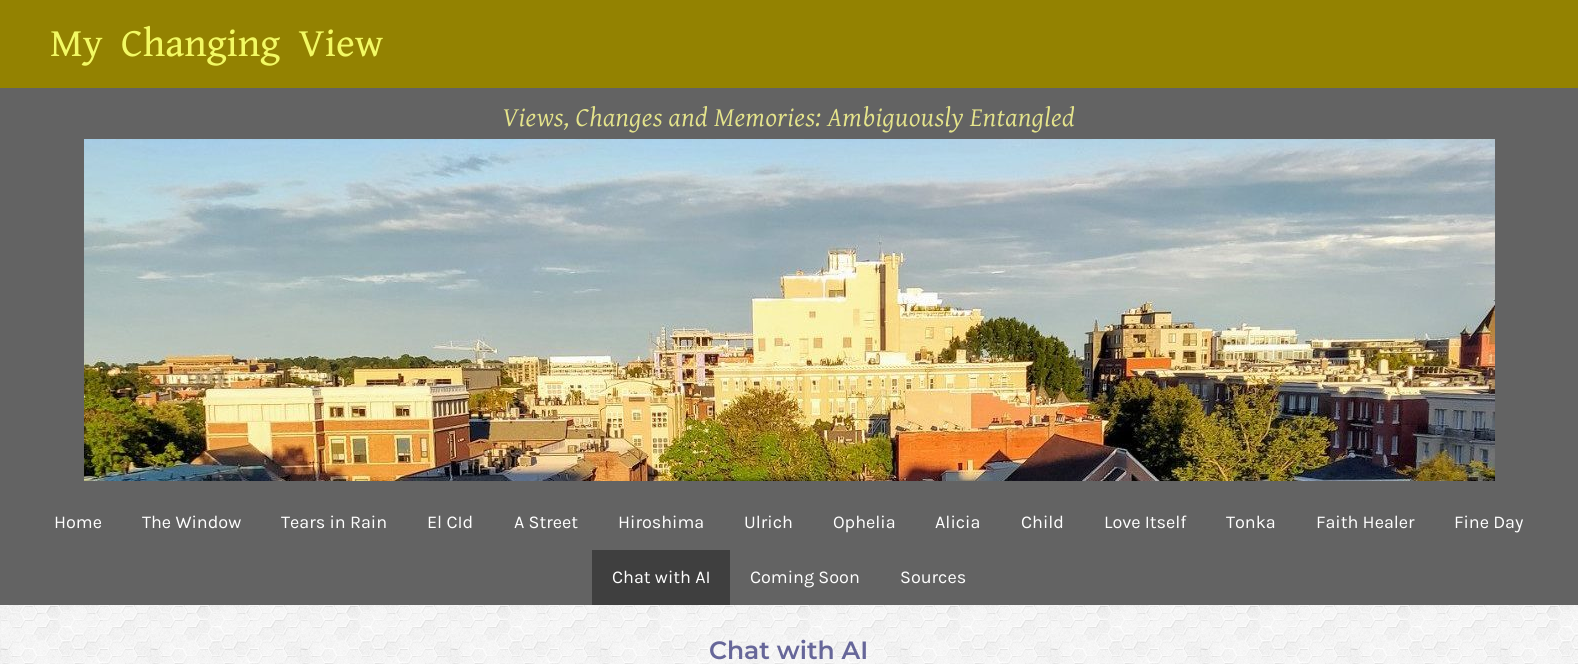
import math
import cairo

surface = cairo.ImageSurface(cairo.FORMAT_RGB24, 1578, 664)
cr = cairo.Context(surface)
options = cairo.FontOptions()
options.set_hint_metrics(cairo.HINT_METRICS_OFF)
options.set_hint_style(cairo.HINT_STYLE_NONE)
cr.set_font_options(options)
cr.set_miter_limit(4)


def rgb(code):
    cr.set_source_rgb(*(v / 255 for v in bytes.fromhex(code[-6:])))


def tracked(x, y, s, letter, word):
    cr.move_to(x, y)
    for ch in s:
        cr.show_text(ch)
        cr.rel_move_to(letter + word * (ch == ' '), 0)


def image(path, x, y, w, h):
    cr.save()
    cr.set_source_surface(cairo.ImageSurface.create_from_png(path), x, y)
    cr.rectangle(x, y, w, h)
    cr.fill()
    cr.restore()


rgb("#ffffff")
cr.paint()
image("img/1.png", 0, 605, 1578, 59)
rgb("#938201")
cr.rectangle(0, 0, 1578, 88)
cr.fill()
rgb("#636363")
cr.rectangle(0, 88, 1578, 517)
cr.fill()
image("img/2.png", 84, 139, 1411, 342)
rgb("#3f3f3f")
cr.rectangle(592, 550, 138, 55)
cr.fill()
cr.select_font_face("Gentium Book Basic")
cr.set_font_size(40)
rgb("#f2f963")
cr.move_to(50, 56)
cr.show_text("My  Changing  View")
cr.select_font_face("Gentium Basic", cairo.FONT_SLANT_ITALIC)
cr.set_font_size(27)
rgb("#e5e48b")
tracked(502, 126, "Views, Changes and Memories: Ambiguously Entangled", 0.45, 0)
cr.select_font_face("Karla")
cr.set_font_size(18)
rgb("#ffffff")
for x, y, s in [
    (54, 528, "Home"),
    (142, 528, "The Window"),
    (281, 528, "Tears in Rain"),
    (427, 528, "El CId"),
    (514, 528, "A Street"),
    (618, 528, "Hiroshima"),
    (744, 528, "Ulrich"),
    (833, 528, "Ophelia"),
    (935, 528, "Alicia"),
    (1021, 528, "Child"),
    (1104, 528, "Love Itself"),
    (1226, 528, "Tonka"),
    (1316, 528, "Faith Healer"),
    (1454, 528, "Fine Day"),
    (612, 583, "Chat with AI"),
    (750, 583, "Coming Soon"),
    (900, 583, "Sources"),
]:
    cr.move_to(x, y)
    cr.show_text(s)
cr.select_font_face("Montserrat SemiBold")
cr.set_font_size(25)
rgb("#666699")
cr.move_to(709, 659)
cr.show_text("Chat with AI")
surface.write_to_png("page.png")
